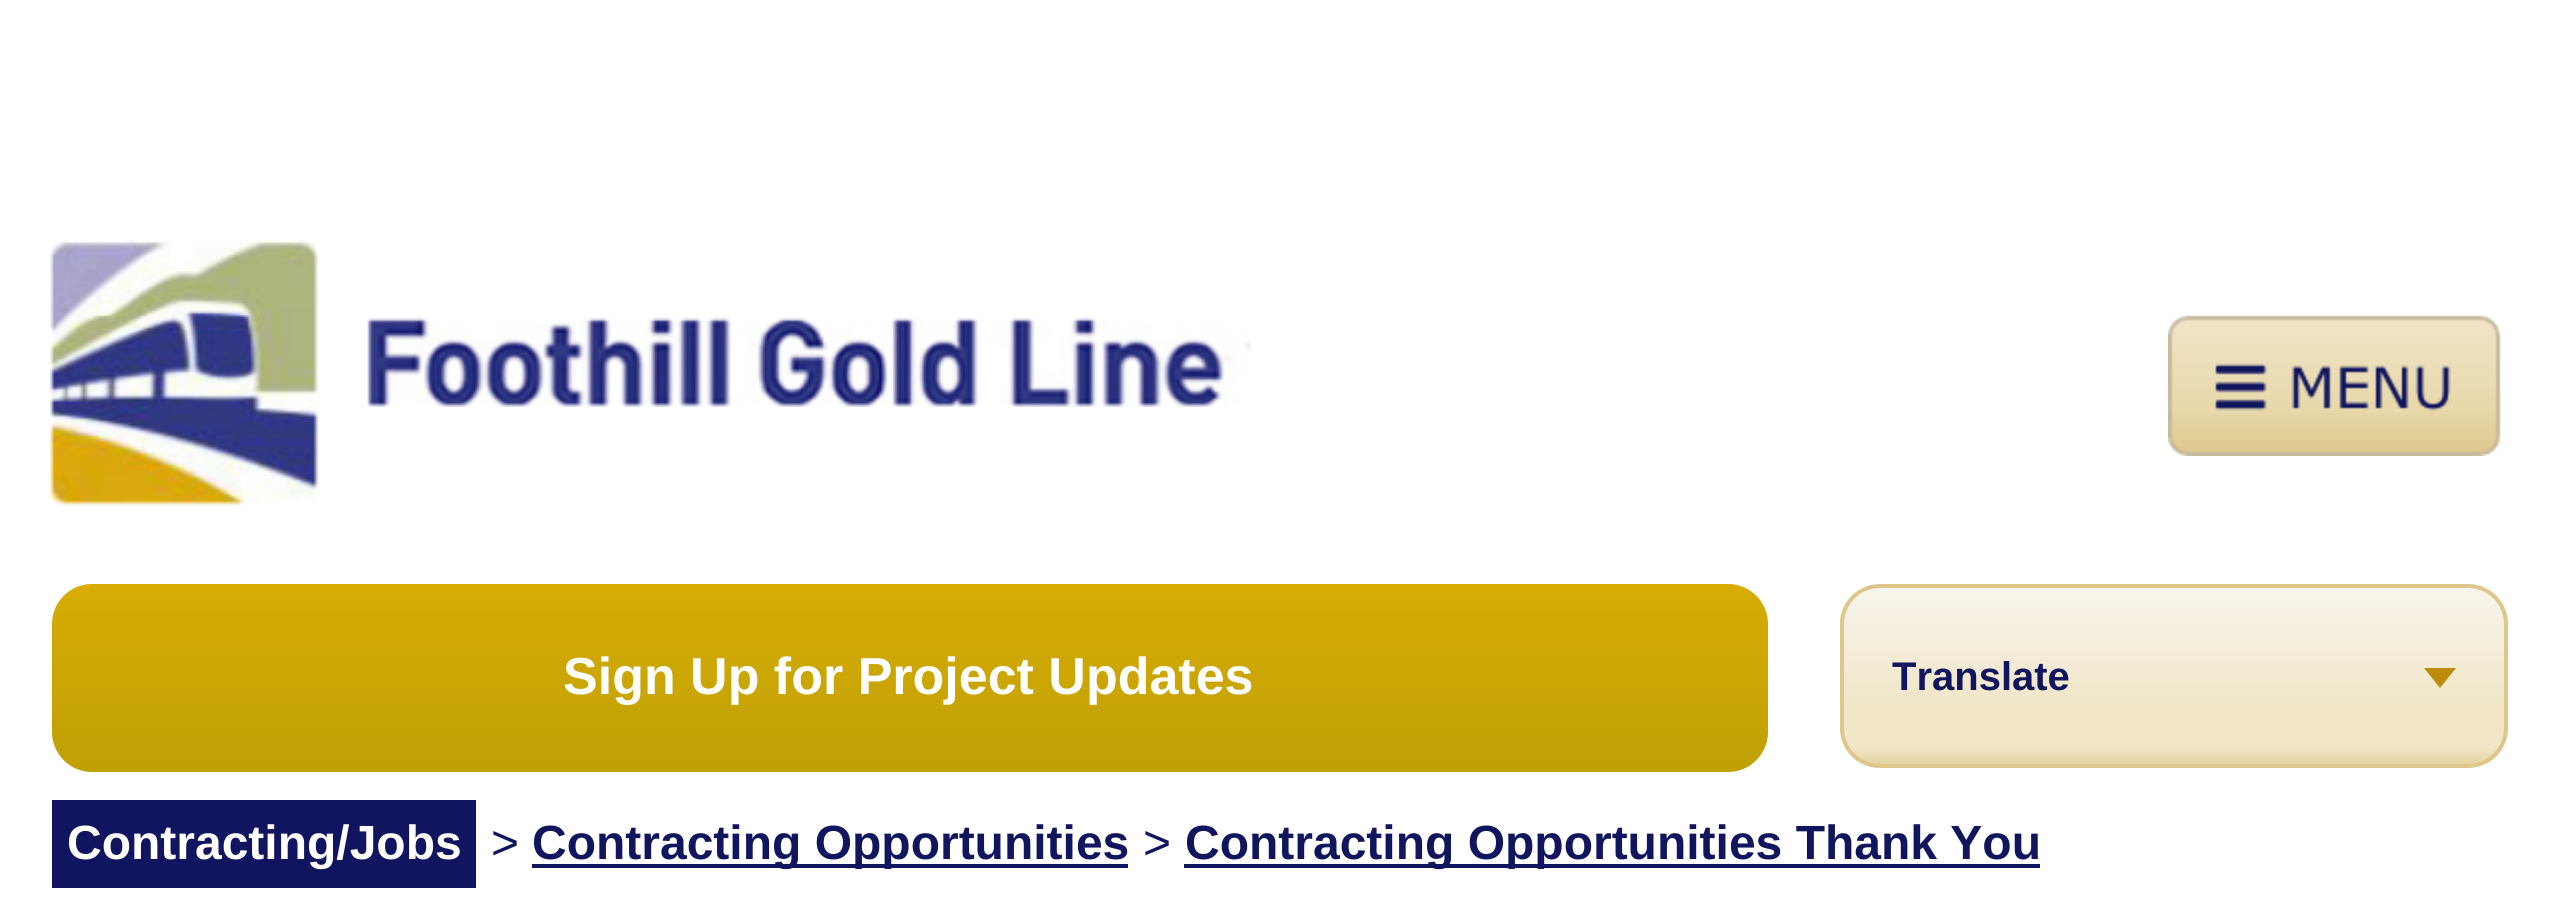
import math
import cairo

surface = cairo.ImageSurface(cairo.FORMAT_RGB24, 2552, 908)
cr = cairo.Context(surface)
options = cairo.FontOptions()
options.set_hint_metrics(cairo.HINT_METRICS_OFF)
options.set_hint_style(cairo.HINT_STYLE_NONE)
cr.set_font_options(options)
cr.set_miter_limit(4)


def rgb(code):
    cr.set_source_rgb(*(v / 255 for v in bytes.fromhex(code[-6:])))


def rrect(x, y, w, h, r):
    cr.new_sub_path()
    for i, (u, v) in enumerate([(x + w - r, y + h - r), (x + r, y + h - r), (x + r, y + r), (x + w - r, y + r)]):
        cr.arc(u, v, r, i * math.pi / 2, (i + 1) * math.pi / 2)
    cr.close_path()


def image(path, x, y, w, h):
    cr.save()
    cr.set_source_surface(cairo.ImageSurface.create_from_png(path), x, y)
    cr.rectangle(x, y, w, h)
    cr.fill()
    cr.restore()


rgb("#ffffff")
cr.paint()
image("img/1.png", 50, 240, 1202, 265)
image("img/2.png", 2168, 315, 333, 141)
gradient = cairo.LinearGradient(910, 584, 910, 772)
gradient.add_color_stop_rgba(0, 0.843, 0.675, 0.02, 1)
gradient.add_color_stop_rgba(1, 0.749, 0.627, 0.02, 1)
cr.set_source(gradient)
rrect(52, 584, 1716, 188, 40)
cr.fill()
cr.save()
rrect(1840, 584, 668, 184, 40)
cr.clip()
gradient = cairo.LinearGradient(2174, 588, 2174, 764)
gradient.add_color_stop_rgba(0, 0.969, 0.957, 0.925, 1)
gradient.add_color_stop_rgba(0.67, 0.945, 0.902, 0.784, 1)
gradient.add_color_stop_rgba(0.91, 0.945, 0.902, 0.784, 1)
gradient.add_color_stop_rgba(1, 0.894, 0.824, 0.627, 1)
cr.set_source(gradient)
cr.rectangle(1840, 588, 668, 176)
cr.fill()
cr.restore()
rrect(1842, 586, 664, 180, 38)
rgb("#dec78a")
cr.set_line_width(4)
cr.stroke()
rgb("#bb8d09")
cr.new_path()
cr.move_to(2440, 688)
cr.line_to(2424, 668)
cr.line_to(2456, 668)
cr.close_path()
cr.fill()
for x, y, w, h, color in [
    (52, 800, 424, 88, "#11155f"),
    (532, 864, 596, 4, "#11155f"),
    (1184, 864, 856, 4, "#11155f"),
]:
    rgb(color)
    cr.rectangle(x, y, w, h)
    cr.fill()
cr.select_font_face("Liberation Sans", cairo.FONT_SLANT_NORMAL, cairo.FONT_WEIGHT_BOLD)
cr.set_font_size(52)
rgb("#ffffff")
cr.move_to(563, 694)
cr.show_text("Sign Up for Project Updates")
cr.set_font_size(40)
rgb("#10155e")
cr.move_to(1892, 690)
cr.show_text("Translate")
cr.set_font_size(48)
rgb("#ffffff")
cr.move_to(67, 859)
cr.show_text("Contracting/Jobs")
cr.select_font_face("Liberation Sans")
rgb("#10155e")
cr.move_to(491, 859)
cr.show_text(">")
cr.select_font_face("Liberation Sans", cairo.FONT_SLANT_NORMAL, cairo.FONT_WEIGHT_BOLD)
cr.move_to(532, 859)
cr.show_text("Contracting Opportunities")
cr.select_font_face("Liberation Sans")
cr.move_to(1143, 859)
cr.show_text(">")
cr.select_font_face("Liberation Sans", cairo.FONT_SLANT_NORMAL, cairo.FONT_WEIGHT_BOLD)
cr.move_to(1185, 859)
cr.show_text("Contracting Opportunities Thank You")
surface.write_to_png("page.png")
